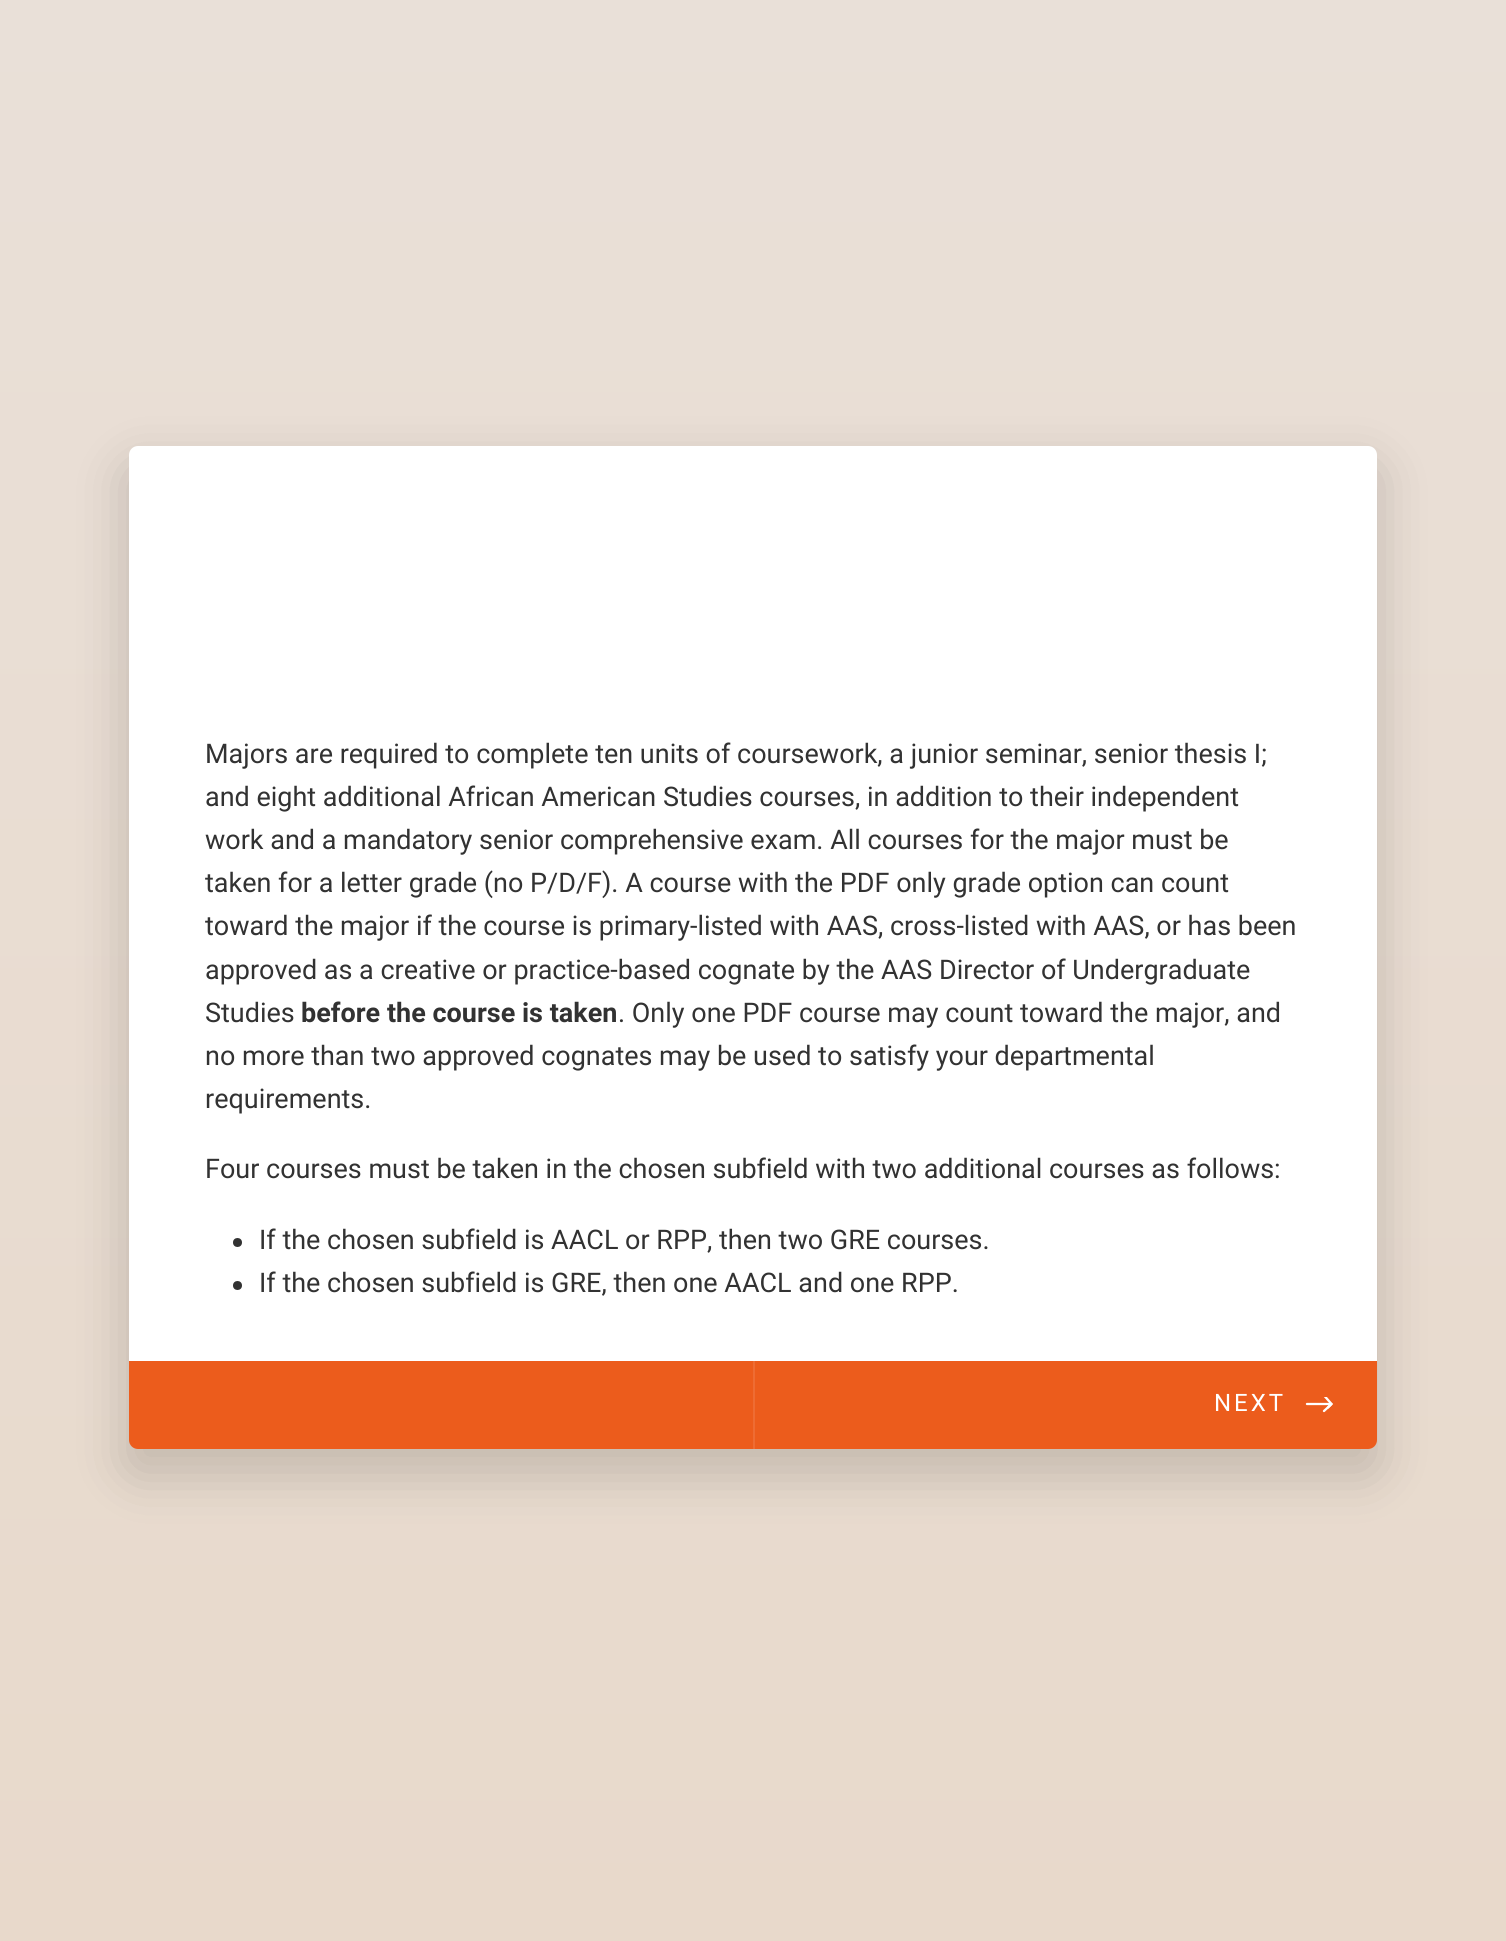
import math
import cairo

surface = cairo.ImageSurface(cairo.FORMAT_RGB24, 1506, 1941)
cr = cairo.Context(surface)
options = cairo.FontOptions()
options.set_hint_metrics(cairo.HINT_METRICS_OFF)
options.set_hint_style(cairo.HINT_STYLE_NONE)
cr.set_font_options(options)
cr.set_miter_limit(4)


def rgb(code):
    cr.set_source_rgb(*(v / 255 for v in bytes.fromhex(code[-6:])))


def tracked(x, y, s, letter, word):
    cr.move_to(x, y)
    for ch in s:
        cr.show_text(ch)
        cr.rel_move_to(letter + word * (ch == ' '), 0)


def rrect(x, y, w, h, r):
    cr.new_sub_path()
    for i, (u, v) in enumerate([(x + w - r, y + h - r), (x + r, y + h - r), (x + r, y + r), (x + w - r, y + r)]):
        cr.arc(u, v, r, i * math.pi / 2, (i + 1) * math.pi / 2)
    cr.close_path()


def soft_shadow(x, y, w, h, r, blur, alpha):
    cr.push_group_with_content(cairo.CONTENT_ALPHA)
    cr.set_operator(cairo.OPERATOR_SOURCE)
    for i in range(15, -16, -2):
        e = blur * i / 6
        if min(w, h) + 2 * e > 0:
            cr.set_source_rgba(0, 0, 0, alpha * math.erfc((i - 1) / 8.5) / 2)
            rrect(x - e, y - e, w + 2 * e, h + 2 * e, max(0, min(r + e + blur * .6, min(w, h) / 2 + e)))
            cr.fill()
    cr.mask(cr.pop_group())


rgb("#ffffff")
cr.paint()
gradient = cairo.LinearGradient(753, 0, 753, 1941)
gradient.add_color_stop_rgba(0, 0.914, 0.878, 0.847, 1)
gradient.add_color_stop_rgba(1, 0.91, 0.851, 0.796, 1)
cr.set_source(gradient)
cr.rectangle(0, 0, 1506, 1941)
cr.fill()
rgb("#000000")
soft_shadow(122, 462, 1260, 1016, 15, 25, 0.15)
rgb("#ffffff")
cr.new_path()
cr.move_to(138, 446)
cr.line_to(1368, 446)
cr.curve_to(1373, 446, 1377, 450, 1377, 455)
cr.line_to(1377, 1361)
cr.line_to(129, 1361)
cr.line_to(129, 455)
cr.curve_to(129, 450, 133, 446, 138, 446)
cr.close_path()
cr.fill()
rgb("#323232")
cr.arc(237.5, 1242.5, 4.5, 0, 2 * math.pi)
cr.fill()
cr.arc(237.5, 1285.5, 4.5, 0, 2 * math.pi)
cr.fill()
rgb("#ec5c1c")
cr.new_path()
cr.move_to(129, 1361)
cr.line_to(1377, 1361)
cr.line_to(1377, 1440)
cr.curve_to(1377, 1445, 1373, 1449, 1368, 1449)
cr.line_to(138, 1449)
cr.curve_to(133, 1449, 129, 1445, 129, 1440)
cr.close_path()
cr.fill()
rgb("#ee6c33")
cr.rectangle(753, 1361, 2, 88)
cr.fill()
cr.new_path()
cr.move_to(1307, 1404)
cr.line_to(1331.5, 1404)
cr.line_to(1324, 1411)
rgb("#ffffff")
cr.set_line_width(2.3)
cr.set_line_cap(cairo.LINE_CAP_ROUND)
cr.set_line_join(cairo.LINE_JOIN_ROUND)
cr.stroke()
cr.save()
cr.rectangle(1305, 1397, 29, 16)
cr.clip()
cr.new_path()
cr.move_to(1324.5, 1396)
cr.line_to(1331.5, 1404)
cr.line_to(1328, 1407.5)
cr.stroke()
cr.restore()
cr.select_font_face("Roboto")
cr.set_font_size(27)
rgb("#323232")
for x, y, s in [
    (205, 763, "Majors are required to complete ten units of coursework, a junior seminar, senior thesis I;"),
    (205, 806, "and eight additional African American Studies courses, in addition to their independent"),
    (205, 849, "work and a mandatory senior comprehensive exam. All courses for the major must be"),
    (205, 892, "taken for a letter grade (no P/D/F). A course with the PDF only grade option can count"),
    (205, 935, "toward the major if the course is primary-listed with AAS, cross-listed with AAS, or has been"),
    (205, 979, "approved as a creative or practice-based cognate by the AAS Director of Undergraduate"),
    (205, 1022, "Studies"),
]:
    cr.move_to(x, y)
    cr.show_text(s)
cr.select_font_face("Roboto", cairo.FONT_SLANT_NORMAL, cairo.FONT_WEIGHT_BOLD)
cr.move_to(301, 1022)
cr.show_text("before the course is taken")
cr.select_font_face("Roboto")
for x, y, s in [
    (618, 1022, ". Only one PDF course may count toward the major, and"),
    (205, 1065, "no more than two approved cognates may be used to satisfy your departmental"),
    (205, 1108, "requirements."),
    (205, 1178, "Four courses must be taken in the chosen subfield with two additional courses as follows:"),
    (259, 1249, "If the chosen subfield is AACL or RPP, then two GRE courses."),
    (259, 1292, "If the chosen subfield is GRE, then one AACL and one RPP."),
]:
    cr.move_to(x, y)
    cr.show_text(s)
cr.set_font_size(24)
rgb("#ffffff")
tracked(1214, 1411, "NEXT", 3, 0)
surface.write_to_png("page.png")
